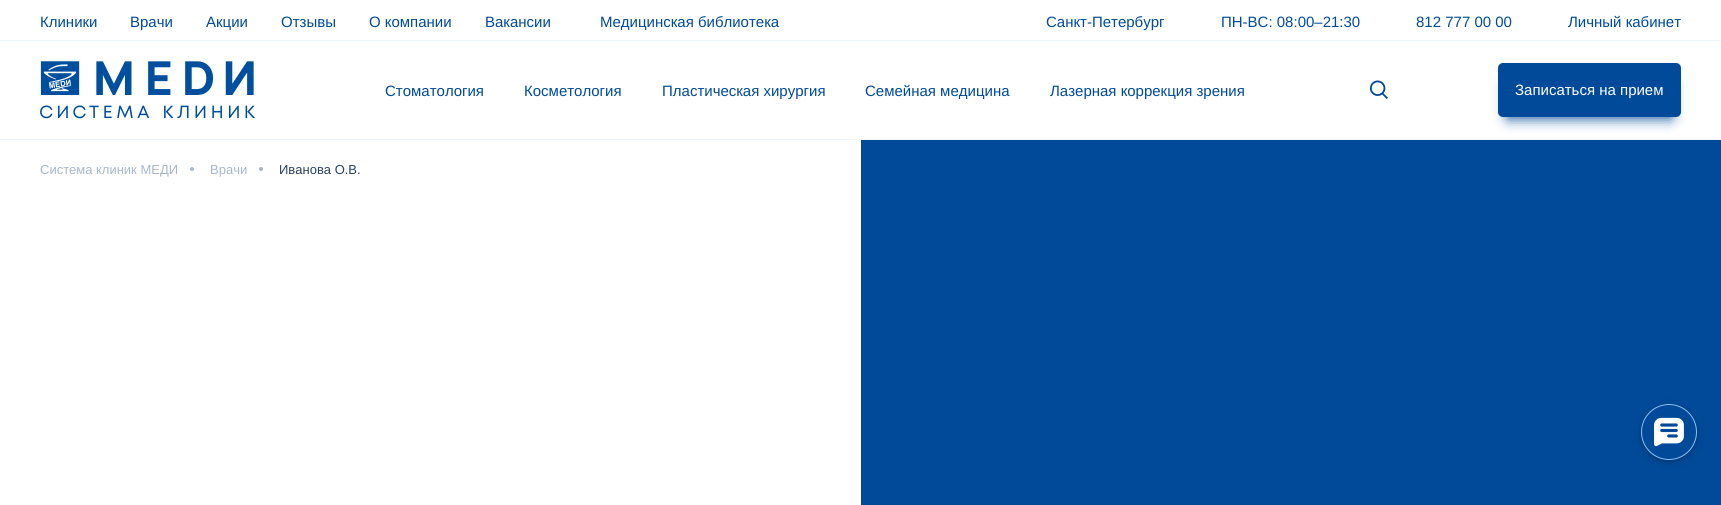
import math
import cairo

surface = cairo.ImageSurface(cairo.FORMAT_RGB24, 1721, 505)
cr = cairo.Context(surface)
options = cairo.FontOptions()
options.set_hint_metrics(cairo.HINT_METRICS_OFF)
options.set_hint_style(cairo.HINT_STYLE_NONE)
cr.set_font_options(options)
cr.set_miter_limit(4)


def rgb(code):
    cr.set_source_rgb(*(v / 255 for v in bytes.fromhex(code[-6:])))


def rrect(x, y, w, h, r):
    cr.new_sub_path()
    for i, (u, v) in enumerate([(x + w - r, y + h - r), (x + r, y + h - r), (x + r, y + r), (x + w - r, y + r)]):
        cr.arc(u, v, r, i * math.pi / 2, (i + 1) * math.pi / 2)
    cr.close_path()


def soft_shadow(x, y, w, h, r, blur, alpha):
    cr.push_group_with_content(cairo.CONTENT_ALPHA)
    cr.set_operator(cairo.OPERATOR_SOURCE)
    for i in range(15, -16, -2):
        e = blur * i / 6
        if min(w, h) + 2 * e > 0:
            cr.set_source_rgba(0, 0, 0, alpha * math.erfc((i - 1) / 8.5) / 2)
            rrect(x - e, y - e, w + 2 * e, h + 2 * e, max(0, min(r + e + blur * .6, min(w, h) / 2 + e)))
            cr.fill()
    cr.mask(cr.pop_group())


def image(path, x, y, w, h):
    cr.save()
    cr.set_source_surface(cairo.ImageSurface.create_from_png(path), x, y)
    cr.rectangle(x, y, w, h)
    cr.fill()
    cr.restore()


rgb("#ffffff")
cr.paint()
rgb("#eef4fb")
cr.rectangle(0, 40, 1721, 1)
cr.fill()
cr.rectangle(0, 139, 1721, 1)
cr.fill()
image("img/1.png", 40, 61, 215, 58)
image("img/2.png", 1369, 80, 19, 19)
rgb("#004a99")
soft_shadow(1508, 84, 163, 34, 0, 7, 1)
rgb("#004a99")
rrect(1498, 63, 183, 54, 5)
cr.fill()
rgb("#a7b7c9")
cr.arc(192, 169, 2, 0, 2 * math.pi)
cr.fill()
cr.arc(261, 169, 2, 0, 2 * math.pi)
cr.fill()
rgb("#004a99")
cr.rectangle(861, 140, 860, 365)
cr.fill()
rgb("#000000")
soft_shadow(1641, 406, 56, 56, 28, 5, 0.12)
soft_shadow(1641, 406, 56, 56, 28, 2.5, 0.16)
rgb("#004a99")
cr.arc(1669, 432, 27.5, 0, 2 * math.pi)
cr.fill_preserve()
rgb("#8bbef5")
cr.set_line_width(1)
cr.stroke()
image("img/3.png", 1654, 417, 30, 30)
cr.select_font_face("Liberation Sans")
cr.set_font_size(15)
rgb("#004a99")
for x, y, s in [
    (40, 27, "Клиники"),
    (130, 27, "Врачи"),
    (206, 27, "Акции"),
    (281, 27, "Отзывы"),
    (369, 27, "О компании"),
    (485, 27, "Вакансии"),
    (600, 27, "Медицинская библиотека"),
    (1046, 27, "Санкт-Петербург"),
    (1221, 27, "ПН-ВС: 08:00–21:30"),
    (1416, 27, "812 777 00 00"),
    (1568, 27, "Личный кабинет"),
    (385, 96, "Стоматология"),
    (524, 96, "Косметология"),
    (662, 96, "Пластическая хирургия"),
    (865, 96, "Семейная медицина"),
    (1050, 96, "Лазерная коррекция зрения"),
]:
    cr.move_to(x, y)
    cr.show_text(s)
rgb("#ffffff")
cr.move_to(1515, 95)
cr.show_text("Записаться на прием")
cr.set_font_size(13)
rgb("#a7b7c9")
cr.move_to(40, 174)
cr.show_text("Система клиник МЕДИ")
cr.move_to(210, 174)
cr.show_text("Врачи")
rgb("#28415e")
cr.move_to(279, 174)
cr.show_text("Иванова О.В.")
surface.write_to_png("page.png")
